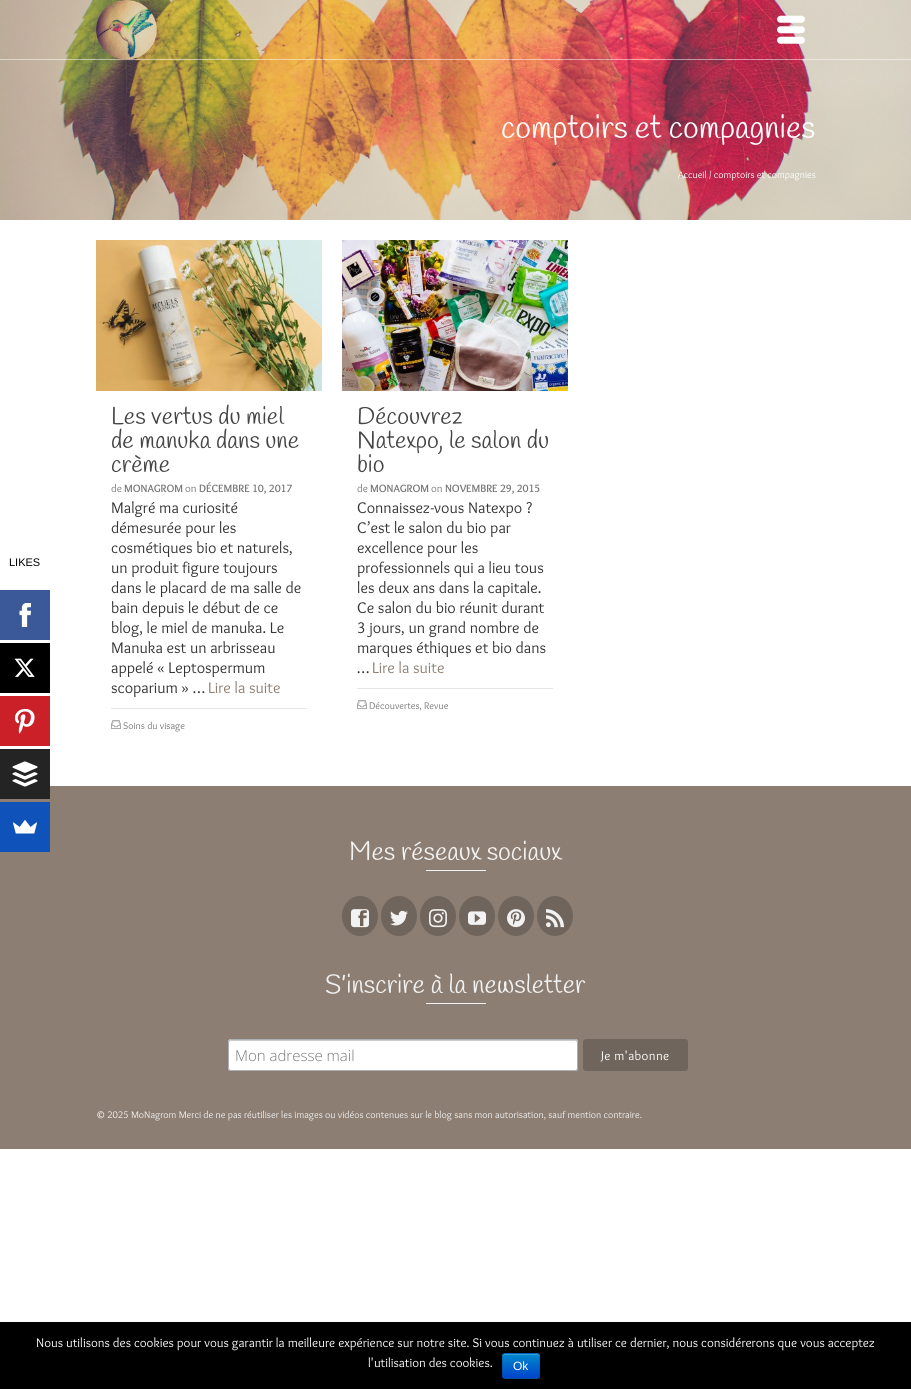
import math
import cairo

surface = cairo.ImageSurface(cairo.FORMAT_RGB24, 911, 1389)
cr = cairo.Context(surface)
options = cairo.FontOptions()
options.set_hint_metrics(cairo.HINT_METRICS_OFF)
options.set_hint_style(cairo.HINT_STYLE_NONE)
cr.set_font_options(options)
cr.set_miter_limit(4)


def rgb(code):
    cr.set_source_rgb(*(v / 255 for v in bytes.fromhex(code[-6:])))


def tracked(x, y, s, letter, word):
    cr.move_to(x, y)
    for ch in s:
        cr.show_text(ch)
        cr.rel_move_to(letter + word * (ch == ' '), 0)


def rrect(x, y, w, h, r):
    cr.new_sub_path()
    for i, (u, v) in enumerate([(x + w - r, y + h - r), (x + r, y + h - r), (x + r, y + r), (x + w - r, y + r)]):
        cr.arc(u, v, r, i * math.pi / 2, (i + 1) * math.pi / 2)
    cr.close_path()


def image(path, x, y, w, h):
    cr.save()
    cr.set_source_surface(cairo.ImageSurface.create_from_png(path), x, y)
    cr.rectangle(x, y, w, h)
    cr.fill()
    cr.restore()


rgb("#ffffff")
cr.paint()
rgb("#3b5998")
cr.rectangle(0, 590, 50, 50)
cr.fill()
image("img/1.png", 19, 603, 12, 24)
rgb("#000000")
cr.rectangle(0, 643, 50, 50)
cr.fill()
image("img/2.png", 14, 658, 21, 19)
rgb("#cb2027")
cr.rectangle(0, 696, 50, 50)
cr.fill()
image("img/3.png", 15, 709, 20, 25)
rgb("#8c7e73")
cr.rectangle(0, 786, 911, 363)
cr.fill()
rgb("#242424")
cr.rectangle(0, 749, 50, 50)
cr.fill()
image("img/4.png", 12, 761, 26, 26)
rgb("#0f52ba")
cr.rectangle(0, 802, 50, 50)
cr.fill()
image("img/5.png", 13, 820, 24, 14)
image("img/8.png", 0, 0, 911, 220)
cr.set_source_rgba(1, 1, 1, 0.5)
cr.rectangle(0, 59, 911, 1)
cr.fill()
image("img/6.png", 96, 0, 61, 60)
image("img/7.png", 777, 15, 28, 29)
image("img/9.png", 96, 240, 226, 151)
rgb("#e6e6e6")
cr.rectangle(111, 708, 196, 1)
cr.fill()
image("img/10.png", 111, 720, 10, 9)
image("img/11.png", 342, 240, 226, 151)
cr.rectangle(357, 688, 196, 1)
cr.fill()
image("img/10.png", 357, 700, 10, 9)
rgb("#f2f2f2")
cr.rectangle(426, 870, 60, 1)
cr.fill()
rgb("#70655c")
cr.new_path()
cr.move_to(360, 896)
cr.curve_to(370, 896, 378, 905, 378, 916)
cr.curve_to(378, 927, 370, 936, 360, 936)
cr.curve_to(350, 936, 342, 927, 342, 916)
cr.curve_to(342, 905, 350, 896, 360, 896)
cr.close_path()
cr.fill()
image("img/12.png", 351, 909, 18, 19)
cr.new_path()
cr.move_to(399, 896)
cr.curve_to(409, 896, 417, 905, 417, 916)
cr.curve_to(417, 927, 409, 936, 399, 936)
cr.curve_to(389, 936, 381, 927, 381, 916)
cr.curve_to(381, 905, 389, 896, 399, 896)
cr.close_path()
cr.fill()
image("img/13.png", 390, 910, 18, 16)
cr.new_path()
cr.move_to(438, 896)
cr.curve_to(448, 896, 456, 905, 456, 916)
cr.curve_to(456, 927, 448, 936, 438, 936)
cr.curve_to(428, 936, 420, 927, 420, 916)
cr.curve_to(420, 905, 428, 896, 438, 896)
cr.close_path()
cr.fill()
image("img/14.png", 429, 909, 18, 19)
cr.new_path()
cr.move_to(477, 896)
cr.curve_to(487, 896, 495, 905, 495, 916)
cr.curve_to(495, 927, 487, 936, 477, 936)
cr.curve_to(467, 936, 459, 927, 459, 916)
cr.curve_to(459, 905, 467, 896, 477, 896)
cr.close_path()
cr.fill()
image("img/15.png", 468, 911, 18, 14)
cr.new_path()
cr.move_to(516, 896)
cr.curve_to(526, 896, 534, 905, 534, 916)
cr.curve_to(534, 927, 526, 936, 516, 936)
cr.curve_to(506, 936, 498, 927, 498, 916)
cr.curve_to(498, 905, 506, 896, 516, 896)
cr.close_path()
cr.fill()
image("img/16.png", 507, 909, 18, 19)
cr.new_path()
cr.move_to(555, 896)
cr.curve_to(565, 896, 573, 905, 573, 916)
cr.curve_to(573, 927, 565, 936, 555, 936)
cr.curve_to(545, 936, 537, 927, 537, 916)
cr.curve_to(537, 905, 545, 896, 555, 896)
cr.close_path()
cr.fill()
image("img/17.png", 546, 909, 18, 19)
rgb("#f2f2f2")
cr.rectangle(426, 1003, 60, 1)
cr.fill()
rgb("#ffffff")
rrect(228, 1039, 350, 32, 3)
cr.fill()
rgb("#cccccc")
cr.new_path()
cr.move_to(231, 1041)
cr.line_to(575, 1041)
cr.curve_to(576, 1041, 577, 1042, 577, 1043)
cr.curve_to(577, 1042, 577, 1040, 575, 1040)
cr.line_to(231, 1040)
cr.line_to(229, 1041)
cr.line_to(229, 1043)
cr.curve_to(229, 1042, 230, 1041, 231, 1041)
cr.close_path()
cr.fill()
rrect(228.5, 1039.5, 349, 31, 2.5)
rgb("#abb0b2")
cr.set_line_width(1)
cr.stroke()
rgb("#70655c")
rrect(583, 1039, 105, 32, 3)
cr.fill()
rgb("#000000")
cr.rectangle(0, 1322, 911, 67)
cr.fill()
rgb("#006dcc")
rrect(502, 1353, 38, 26, 3)
cr.fill()
cr.save()
rrect(502, 1353, 38, 26, 3)
cr.clip()
gradient = cairo.LinearGradient(521, 1354, 521, 1378)
gradient.add_color_stop_rgba(0, 0, 0.533, 0.8, 1)
gradient.add_color_stop_rgba(1, 0, 0.267, 0.8, 1)
cr.set_source(gradient)
cr.rectangle(502, 1354, 38, 24)
cr.fill()
cr.restore()
cr.set_source_rgba(1, 1, 1, 0.2)
cr.new_path()
cr.move_to(505, 1355)
cr.line_to(537, 1355)
cr.curve_to(538, 1355, 539, 1356, 539, 1357)
cr.curve_to(539, 1352.5, 535.5, 1354, 531.5, 1354)
cr.line_to(510.5, 1354)
cr.curve_to(506.5, 1354, 503, 1352.5, 503, 1357)
cr.curve_to(503, 1356, 504, 1355, 505, 1355)
cr.close_path()
cr.fill()
cr.new_path()
cr.move_to(539, 1378)
cr.curve_to(538.5, 1378, 537.5, 1378.5, 537, 1378.5)
cr.line_to(505, 1378.5)
cr.curve_to(504.5, 1378.5, 503.5, 1378, 503, 1378)
cr.set_source_rgba(0, 0, 0, 0.25)
cr.stroke()
cr.new_path()
cr.move_to(503, 1378)
cr.curve_to(503, 1377.5, 502.5, 1376.5, 502.5, 1376)
cr.line_to(502.5, 1356)
cr.curve_to(502.5, 1355.5, 503, 1354.5, 503, 1354)
cr.curve_to(503.5, 1354, 504.5, 1353.5, 505, 1353.5)
cr.line_to(537, 1353.5)
cr.curve_to(537.5, 1353.5, 538.5, 1354, 539, 1354)
cr.curve_to(539, 1354.5, 539.5, 1355.5, 539.5, 1356)
cr.line_to(539.5, 1376)
cr.curve_to(539.5, 1376.5, 539, 1377.5, 539, 1378)
cr.set_source_rgba(0, 0, 0, 0.1)
cr.stroke()
cr.select_font_face("Liberation Sans")
cr.set_font_size(11)
rgb("#000000")
cr.move_to(9, 566)
cr.show_text("LIKES")
cr.select_font_face("Handlee")
cr.set_font_size(32)
rgb("#ffffff")
cr.move_to(501, 138)
cr.show_text("comptoirs et compagnies")
cr.select_font_face("Overlock")
cr.set_font_size(10)
cr.move_to(678, 178)
cr.show_text("Accueil / comptoirs et compagnies")
cr.select_font_face("Handlee")
cr.set_font_size(24)
rgb("#444444")
for x, y, s in [
    (111, 424, "Les vertus du miel"),
    (111, 448, "de manuka dans une"),
    (111, 472, "crème"),
]:
    cr.move_to(x, y)
    cr.show_text(s)
cr.select_font_face("Overlock")
cr.set_font_size(11)
rgb("#777777")
cr.move_to(111, 492)
cr.show_text("de")
cr.select_font_face("Overlock", cairo.FONT_SLANT_NORMAL, cairo.FONT_WEIGHT_BOLD)
cr.move_to(124, 492)
cr.show_text("MONAGROM")
cr.select_font_face("Overlock")
cr.move_to(185, 492)
cr.show_text("on")
cr.select_font_face("Overlock", cairo.FONT_SLANT_NORMAL, cairo.FONT_WEIGHT_BOLD)
cr.move_to(199, 492)
cr.show_text("DÉCEMBRE 10, 2017")
cr.select_font_face("Overlock")
cr.set_font_size(16)
rgb("#333333")
for x, y, s in [
    (111, 513, "Malgré ma curiosité"),
    (111, 533, "démesurée pour les"),
    (111, 553, "cosmétiques bio et naturels,"),
    (111, 573, "un produit figure toujours"),
    (111, 593, "dans le placard de ma salle de"),
    (111, 613, "bain depuis le début de ce"),
    (111, 633, "blog, le miel de manuka. Le"),
    (111, 653, "Manuka est un arbrisseau"),
    (111, 673, "appelé « Leptospermum"),
    (111, 693, "scoparium » …"),
]:
    cr.move_to(x, y)
    cr.show_text(s)
rgb("#8c7e73")
cr.move_to(208, 693)
cr.show_text("Lire la suite")
cr.set_font_size(10)
rgb("#777777")
cr.move_to(123, 729)
cr.show_text("Soins du visage")
cr.select_font_face("Handlee")
cr.set_font_size(24)
rgb("#444444")
for x, y, s in [
    (357, 424, "Découvrez"),
    (357, 448, "Natexpo, le salon du"),
    (357, 472, "bio"),
]:
    cr.move_to(x, y)
    cr.show_text(s)
cr.select_font_face("Overlock")
cr.set_font_size(11)
rgb("#777777")
cr.move_to(357, 492)
cr.show_text("de")
cr.select_font_face("Overlock", cairo.FONT_SLANT_NORMAL, cairo.FONT_WEIGHT_BOLD)
cr.move_to(370, 492)
cr.show_text("MONAGROM")
cr.select_font_face("Overlock")
cr.move_to(431, 492)
cr.show_text("on")
cr.select_font_face("Overlock", cairo.FONT_SLANT_NORMAL, cairo.FONT_WEIGHT_BOLD)
cr.move_to(445, 492)
cr.show_text("NOVEMBRE 29, 2015")
cr.select_font_face("Overlock")
cr.set_font_size(16)
rgb("#333333")
for x, y, s in [
    (357, 513, "Connaissez-vous Natexpo ?"),
    (357, 533, "C’est le salon du bio par"),
    (357, 553, "excellence pour les"),
    (357, 573, "professionnels qui a lieu tous"),
    (357, 593, "les deux ans dans la capitale."),
    (357, 613, "Ce salon du bio réunit durant"),
    (357, 633, "3 jours, un grand nombre de"),
    (357, 653, "marques éthiques et bio dans"),
    (357, 673, "…"),
]:
    cr.move_to(x, y)
    cr.show_text(s)
rgb("#8c7e73")
cr.move_to(372, 673)
cr.show_text("Lire la suite")
cr.set_font_size(10)
rgb("#777777")
cr.move_to(369, 709)
cr.show_text("Découvertes, Revue")
cr.select_font_face("Handlee")
cr.set_font_size(26)
rgb("#f2f2f2")
cr.move_to(349, 860)
cr.show_text("Mes réseaux sociaux")
cr.move_to(325, 993)
cr.show_text("S’inscrire à la newsletter")
cr.select_font_face("Open Sans Light")
cr.set_font_size(15)
rgb("#777777")
cr.move_to(235, 1061)
cr.show_text("Mon adresse mail")
cr.select_font_face("Overlock")
cr.set_font_size(13)
rgb("#ffffff")
tracked(601, 1060, "Je m'abonne", 0.4, 0)
cr.set_font_size(10)
rgb("#f2f2f2")
cr.move_to(96, 1118)
cr.show_text("© 2025 MoNagrom Merci de ne pas réutiliser les images ou vidéos contenues sur le blog sans mon autorisation, sauf mention contraire.")
cr.set_font_size(13)
rgb("#ffffff")
cr.move_to(36, 1347)
cr.show_text("Nous utilisons des cookies pour vous garantir la meilleure expérience sur notre site. Si vous continuez à utiliser ce dernier, nous considérerons que vous acceptez")
cr.move_to(368, 1367)
cr.show_text("l'utilisation des cookies.")
cr.select_font_face("Liberation Sans")
cr.set_font_size(12)
cr.move_to(513, 1370)
cr.show_text("Ok")
surface.write_to_png("page.png")
